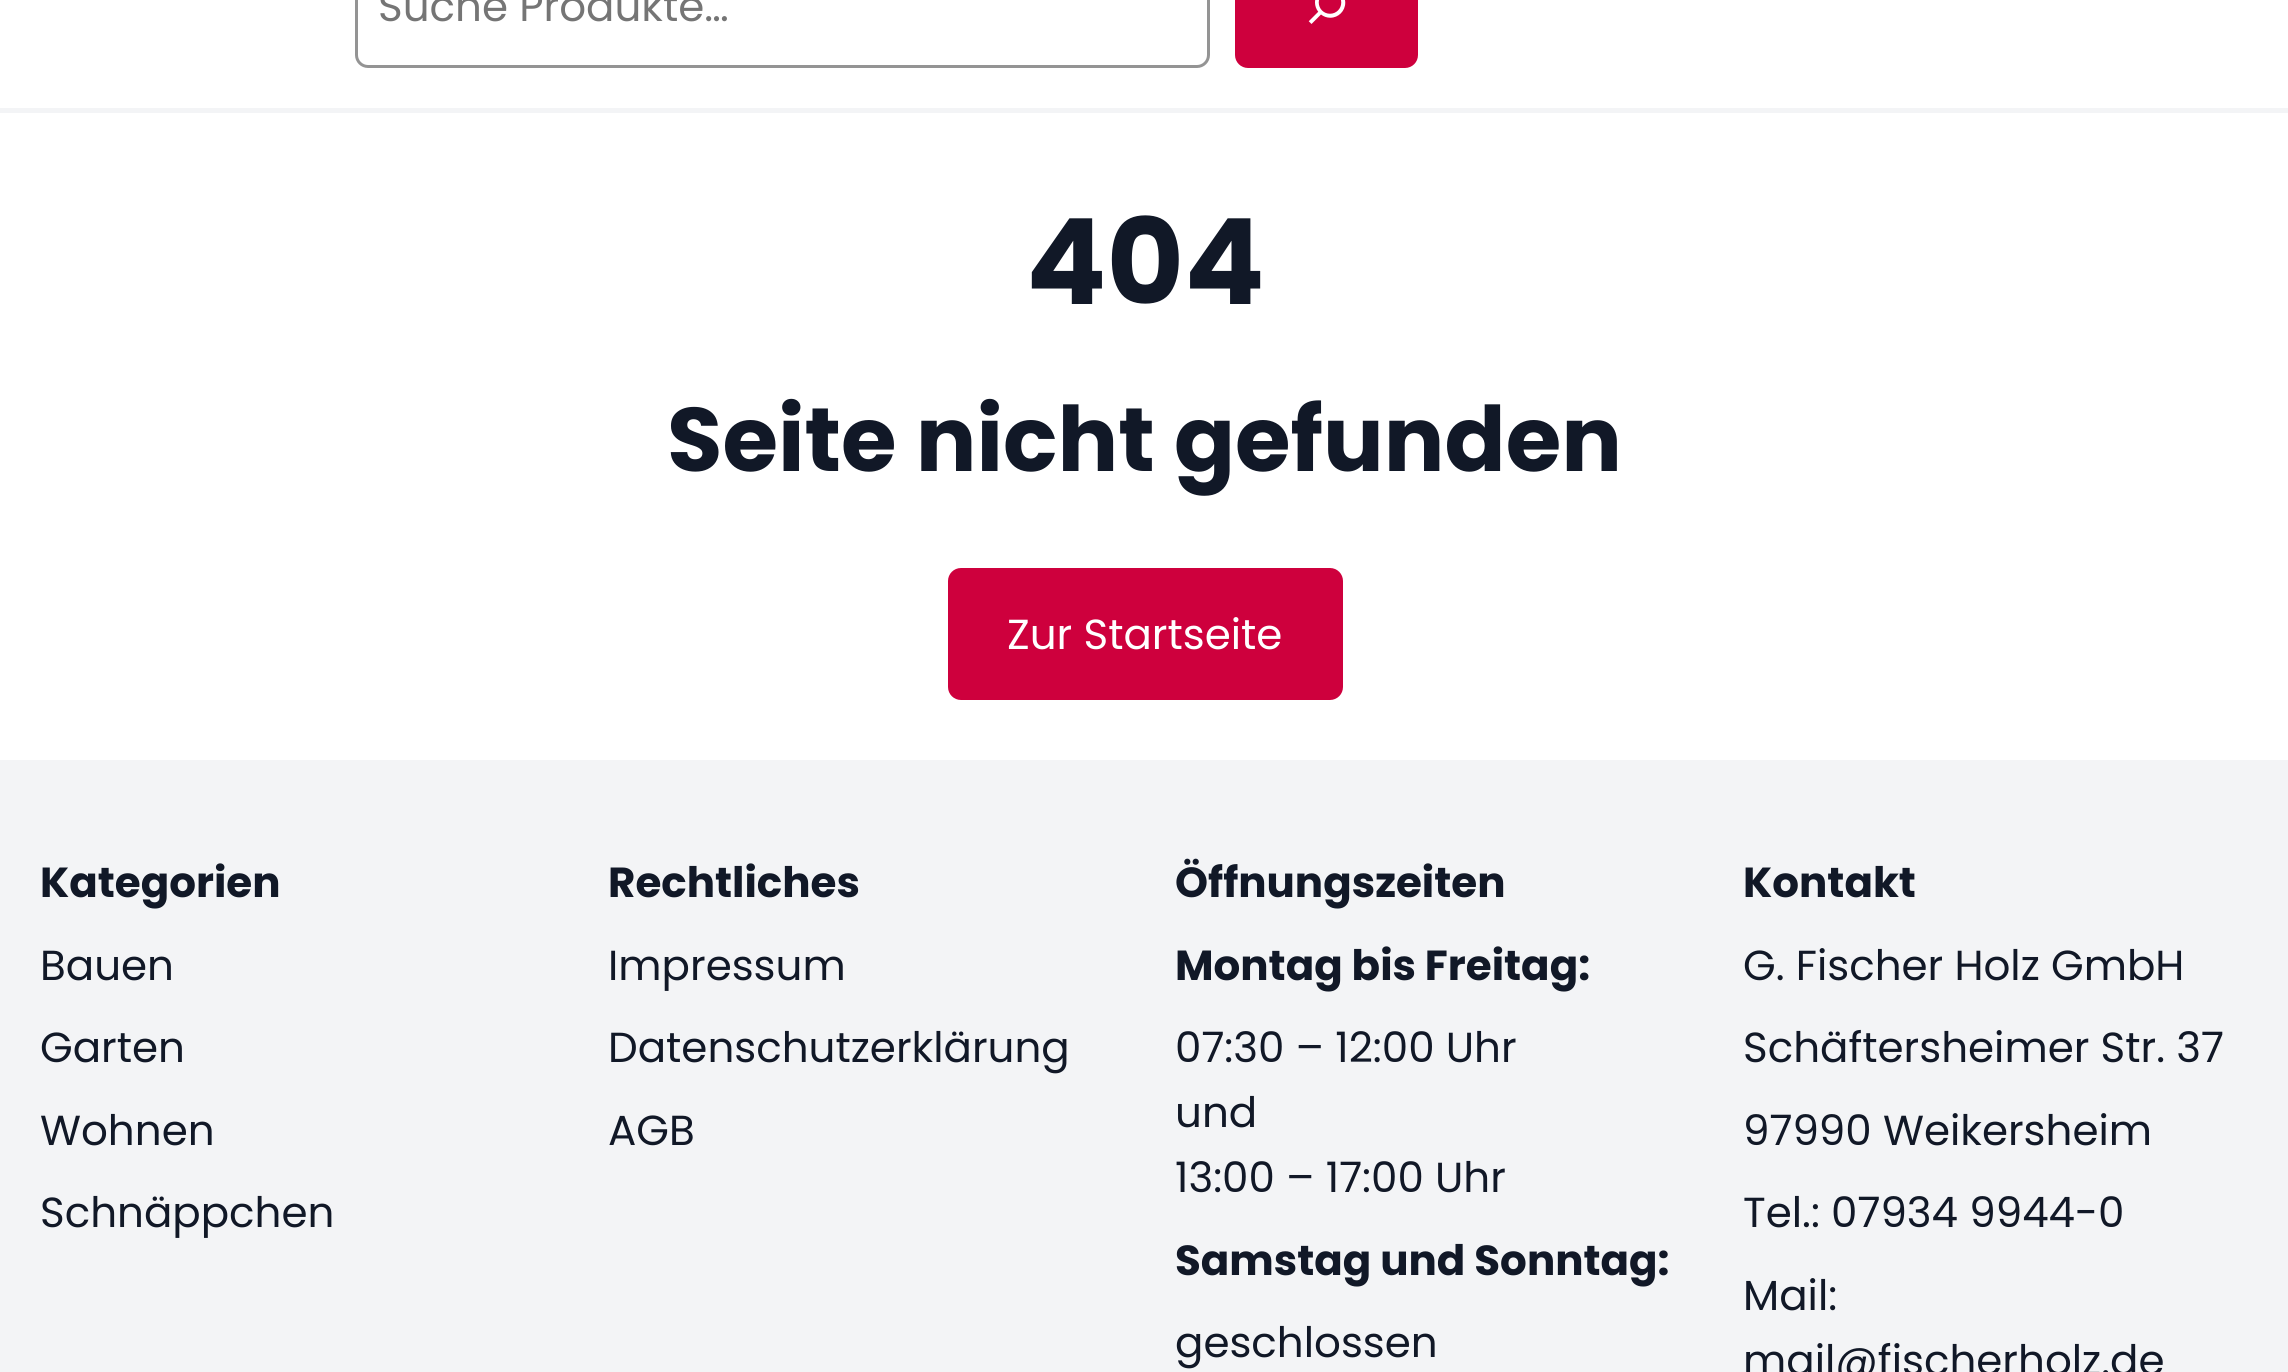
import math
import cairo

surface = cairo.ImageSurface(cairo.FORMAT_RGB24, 2288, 1372)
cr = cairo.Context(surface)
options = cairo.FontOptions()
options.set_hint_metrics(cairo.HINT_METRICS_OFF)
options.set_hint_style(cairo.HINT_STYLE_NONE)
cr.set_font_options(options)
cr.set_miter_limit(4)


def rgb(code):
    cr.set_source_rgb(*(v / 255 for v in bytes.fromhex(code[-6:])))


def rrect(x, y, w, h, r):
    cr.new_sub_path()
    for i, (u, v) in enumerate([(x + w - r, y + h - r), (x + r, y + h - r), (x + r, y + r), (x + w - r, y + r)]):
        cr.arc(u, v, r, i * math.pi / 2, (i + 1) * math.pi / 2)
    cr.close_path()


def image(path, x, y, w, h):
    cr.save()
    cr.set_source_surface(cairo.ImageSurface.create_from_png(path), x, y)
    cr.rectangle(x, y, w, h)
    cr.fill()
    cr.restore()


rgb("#ffffff")
cr.paint()
rgb("#f3f4f6")
cr.rectangle(0, 108, 2288, 5)
cr.fill()
rrect(356.5, -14.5, 852, 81, 11.5)
rgb("#949494")
cr.set_line_width(3)
cr.stroke()
rgb("#ce003d")
rrect(1235, -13, 183, 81, 13)
cr.fill()
image("img/1.png", 1308, 0, 38, 24)
rrect(948, 568, 395, 132, 13)
cr.fill()
rgb("#f3f4f6")
cr.rectangle(0, 760, 2288, 612)
cr.fill()
cr.select_font_face("Poppins")
cr.set_font_size(42)
rgb("#757575")
cr.move_to(378, 21)
cr.show_text("Suche Produkte…")
cr.select_font_face("Poppins", cairo.FONT_SLANT_NORMAL, cairo.FONT_WEIGHT_BOLD)
cr.set_font_size(119)
rgb("#111827")
cr.move_to(1026, 304)
cr.show_text("404")
cr.set_font_size(90.1)
cr.move_to(667, 471)
cr.show_text("Seite nicht gefunden")
cr.select_font_face("Poppins")
cr.set_font_size(42)
rgb("#ffffff")
cr.move_to(1007, 649)
cr.show_text("Zur Startseite")
cr.select_font_face("Poppins", cairo.FONT_SLANT_NORMAL, cairo.FONT_WEIGHT_BOLD)
rgb("#111827")
cr.move_to(40, 897)
cr.show_text("Kategorien")
cr.select_font_face("Poppins")
for x, y, s in [
    (40, 980, "Bauen"),
    (40, 1062, "Garten"),
    (40, 1145, "Wohnen"),
    (40, 1227, "Schnäppchen"),
]:
    cr.move_to(x, y)
    cr.show_text(s)
cr.select_font_face("Poppins", cairo.FONT_SLANT_NORMAL, cairo.FONT_WEIGHT_BOLD)
cr.move_to(608, 897)
cr.show_text("Rechtliches")
cr.select_font_face("Poppins")
for x, y, s in [
    (608, 980, "Impressum"),
    (608, 1062, "Datenschutzerklärung"),
    (608, 1145, "AGB"),
]:
    cr.move_to(x, y)
    cr.show_text(s)
cr.select_font_face("Poppins", cairo.FONT_SLANT_NORMAL, cairo.FONT_WEIGHT_BOLD)
cr.move_to(1175, 897)
cr.show_text("Öffnungszeiten")
cr.move_to(1175, 980)
cr.show_text("Montag bis Freitag:")
cr.select_font_face("Poppins")
for x, y, s in [
    (1175, 1062, "07:30 – 12:00 Uhr"),
    (1175, 1127, "und"),
    (1175, 1192, "13:00 – 17:00 Uhr"),
]:
    cr.move_to(x, y)
    cr.show_text(s)
cr.select_font_face("Poppins", cairo.FONT_SLANT_NORMAL, cairo.FONT_WEIGHT_BOLD)
cr.move_to(1175, 1275)
cr.show_text("Samstag und Sonntag:")
cr.select_font_face("Poppins")
cr.move_to(1175, 1357)
cr.show_text("geschlossen")
cr.select_font_face("Poppins", cairo.FONT_SLANT_NORMAL, cairo.FONT_WEIGHT_BOLD)
cr.move_to(1743, 897)
cr.show_text("Kontakt")
cr.select_font_face("Poppins")
for x, y, s in [
    (1743, 980, "G. Fischer Holz GmbH"),
    (1743, 1062, "Schäftersheimer Str. 37"),
    (1743, 1145, "97990 Weikersheim"),
    (1743, 1227, "Tel.: 07934 9944-0"),
    (1743, 1310, "Mail:"),
    (1743, 1375, "mail@fischerholz.de"),
]:
    cr.move_to(x, y)
    cr.show_text(s)
surface.write_to_png("page.png")
